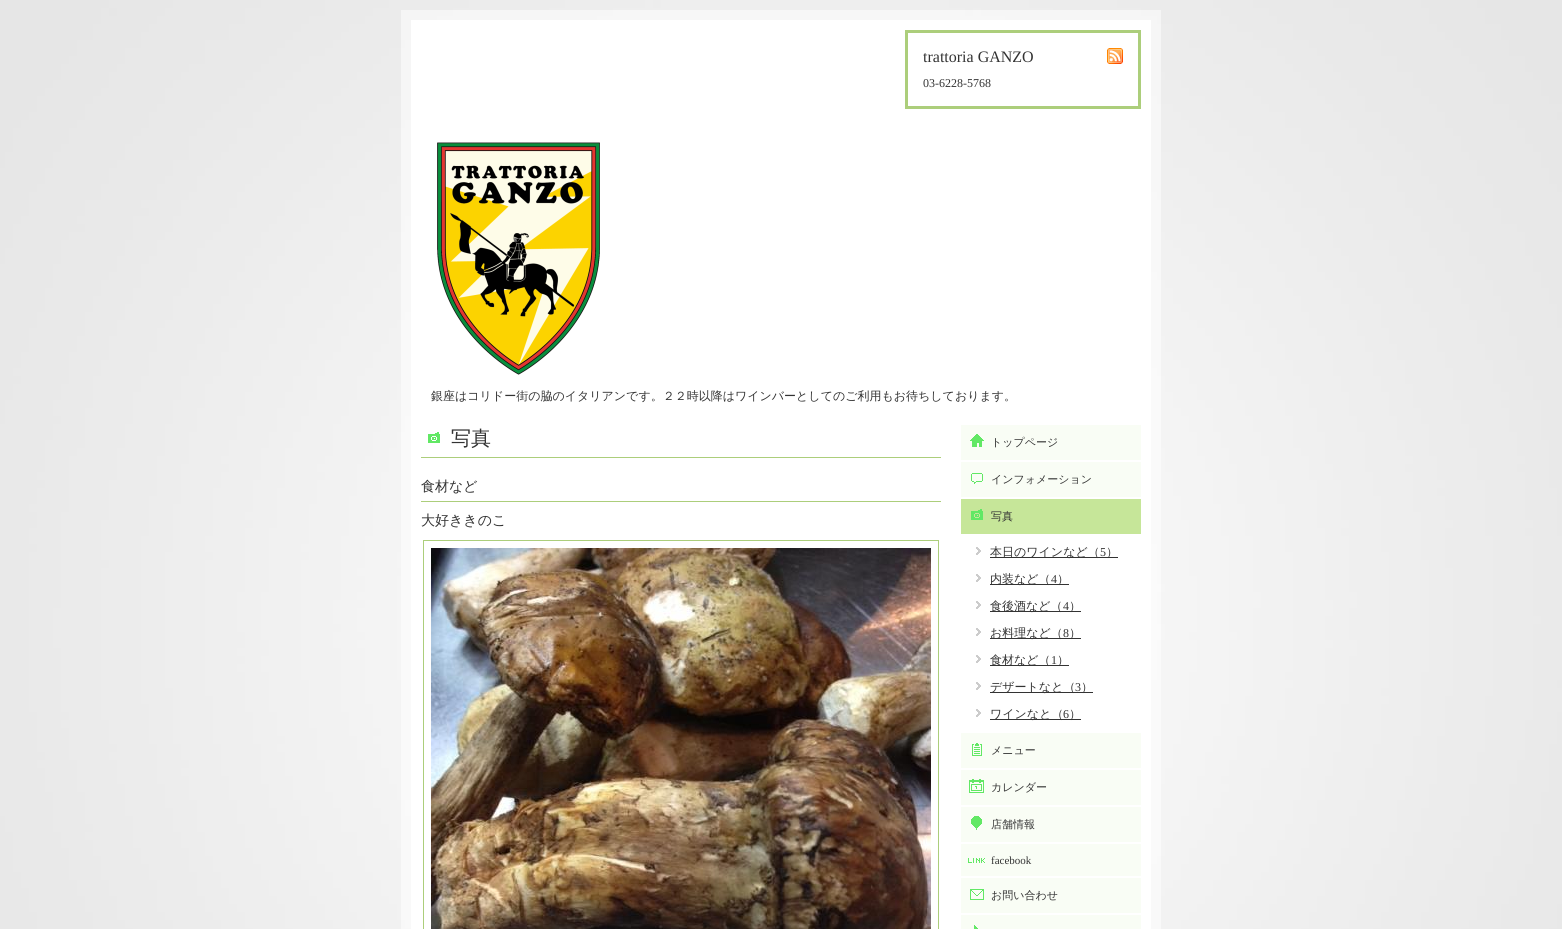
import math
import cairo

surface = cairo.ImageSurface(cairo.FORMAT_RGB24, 1562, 929)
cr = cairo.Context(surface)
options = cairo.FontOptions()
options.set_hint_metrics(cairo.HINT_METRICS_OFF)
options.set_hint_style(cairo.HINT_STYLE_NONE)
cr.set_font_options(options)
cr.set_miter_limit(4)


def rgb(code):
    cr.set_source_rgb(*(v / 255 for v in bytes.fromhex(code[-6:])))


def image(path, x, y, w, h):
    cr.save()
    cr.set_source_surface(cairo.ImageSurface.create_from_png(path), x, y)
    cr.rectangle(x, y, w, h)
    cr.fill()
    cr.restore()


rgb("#ffffff")
cr.paint()
image("img/1.png", 0, 0, 1562, 929)
cr.set_source_rgba(1, 1, 1, 0.5)
cr.rectangle(401, 10, 760, 919)
cr.fill()
rgb("#ffffff")
cr.rectangle(411, 20, 740, 909)
cr.fill()
cr.rectangle(906.5, 31.5, 233, 76)
rgb("#acce7b")
cr.set_line_width(3)
cr.stroke()
image("img/2.png", 1107, 48, 16, 16)
image("img/3.png", 437, 142, 163, 233)
image("img/4.png", 428, 432, 12, 11)
cr.rectangle(421, 457, 520, 1)
cr.fill()
cr.rectangle(421, 501, 520, 1)
cr.fill()
cr.rectangle(423.5, 540.5, 515, 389)
cr.set_line_width(1)
cr.stroke()
image("img/5.png", 431, 548, 500, 381)
rgb("#f9fdf5")
cr.rectangle(961, 425, 180, 35)
cr.fill()
image("img/6.png", 970, 434, 14, 13)
cr.rectangle(961, 462, 180, 35)
cr.fill()
image("img/7.png", 971, 473, 12, 11)
rgb("#c6e699")
cr.rectangle(961, 499, 180, 35)
cr.fill()
image("img/8.png", 971, 509, 12, 11)
image("img/9.png", 976, 547, 5, 8)
rgb("#333333")
cr.rectangle(990, 557, 128, 1)
cr.fill()
image("img/9.png", 976, 574, 5, 8)
cr.rectangle(990, 584, 79, 1)
cr.fill()
image("img/9.png", 976, 601, 5, 8)
cr.rectangle(990, 611, 91, 1)
cr.fill()
image("img/9.png", 976, 628, 5, 8)
cr.rectangle(990, 638, 91, 1)
cr.fill()
image("img/9.png", 976, 655, 5, 8)
cr.rectangle(990, 665, 79, 1)
cr.fill()
image("img/9.png", 976, 682, 5, 8)
cr.rectangle(990, 692, 103, 1)
cr.fill()
image("img/9.png", 976, 709, 5, 8)
cr.rectangle(990, 719, 91, 1)
cr.fill()
rgb("#f9fdf5")
cr.rectangle(961, 733, 180, 35)
cr.fill()
image("img/10.png", 972, 743, 10, 13)
cr.rectangle(961, 770, 180, 35)
cr.fill()
image("img/11.png", 969, 779, 15, 14)
cr.rectangle(961, 807, 180, 35)
cr.fill()
image("img/12.png", 971, 816, 11, 14)
cr.rectangle(961, 844, 180, 32)
cr.fill()
image("img/13.png", 968, 858, 17, 5)
cr.rectangle(961, 878, 180, 35)
cr.fill()
image("img/14.png", 970, 889, 14, 11)
cr.rectangle(961, 915, 180, 14)
cr.fill()
image("img/15.png", 974, 925, 4, 4)
cr.select_font_face("Liberation Serif")
cr.set_font_size(16)
rgb("#333333")
cr.move_to(923, 62)
cr.show_text("trattoria GANZO")
cr.set_font_size(12)
cr.move_to(923, 87)
cr.show_text("03-6228-5768")
cr.select_font_face("WenQuanYi Zen Hei Medium")
cr.move_to(431, 400)
cr.show_text("銀座はコリドー街の脇のイタリアンです。２２時以降はワインバーとしてのご利用もお待ちしております。")
cr.set_font_size(20)
cr.move_to(451, 445)
cr.show_text("写真")
cr.set_font_size(14)
cr.move_to(421, 491)
cr.show_text("食材など")
cr.move_to(421, 525)
cr.show_text("大好ききのこ")
cr.set_font_size(11)
for x, y, s in [
    (991, 446, "トップページ"),
    (991, 483, "インフォメーション"),
    (991, 520, "写真"),
]:
    cr.move_to(x, y)
    cr.show_text(s)
cr.set_font_size(12)
cr.move_to(990, 556)
cr.show_text("本日のワインなど（")
cr.select_font_face("Liberation Serif")
cr.move_to(1100, 556)
cr.show_text("5")
cr.select_font_face("WenQuanYi Zen Hei Medium")
cr.move_to(1106, 556)
cr.show_text("）")
cr.move_to(990, 583)
cr.show_text("内装など（")
cr.select_font_face("Liberation Serif")
cr.move_to(1051, 583)
cr.show_text("4")
cr.select_font_face("WenQuanYi Zen Hei Medium")
cr.move_to(1057, 583)
cr.show_text("）")
cr.move_to(990, 610)
cr.show_text("食後酒など（")
cr.select_font_face("Liberation Serif")
cr.move_to(1063, 610)
cr.show_text("4")
cr.select_font_face("WenQuanYi Zen Hei Medium")
cr.move_to(1069, 610)
cr.show_text("）")
cr.move_to(990, 637)
cr.show_text("お料理など（")
cr.select_font_face("Liberation Serif")
cr.move_to(1063, 637)
cr.show_text("8")
cr.select_font_face("WenQuanYi Zen Hei Medium")
cr.move_to(1069, 637)
cr.show_text("）")
cr.move_to(990, 664)
cr.show_text("食材など（")
cr.select_font_face("Liberation Serif")
cr.move_to(1051, 664)
cr.show_text("1")
cr.select_font_face("WenQuanYi Zen Hei Medium")
cr.move_to(1057, 664)
cr.show_text("）")
cr.move_to(990, 691)
cr.show_text("デザートなと（")
cr.select_font_face("Liberation Serif")
cr.move_to(1075, 691)
cr.show_text("3")
cr.select_font_face("WenQuanYi Zen Hei Medium")
cr.move_to(1081, 691)
cr.show_text("）")
cr.move_to(990, 718)
cr.show_text("ワインなと（")
cr.select_font_face("Liberation Serif")
cr.move_to(1063, 718)
cr.show_text("6")
cr.select_font_face("WenQuanYi Zen Hei Medium")
cr.move_to(1069, 718)
cr.show_text("）")
cr.set_font_size(11)
for x, y, s in [
    (991, 754, "メニュー"),
    (991, 791, "カレンダー"),
    (991, 828, "店舗情報"),
]:
    cr.move_to(x, y)
    cr.show_text(s)
cr.select_font_face("Liberation Serif")
cr.move_to(991, 864)
cr.show_text("facebook")
cr.select_font_face("WenQuanYi Zen Hei Medium")
cr.move_to(991, 899)
cr.show_text("お問い合わせ")
surface.write_to_png("page.png")
